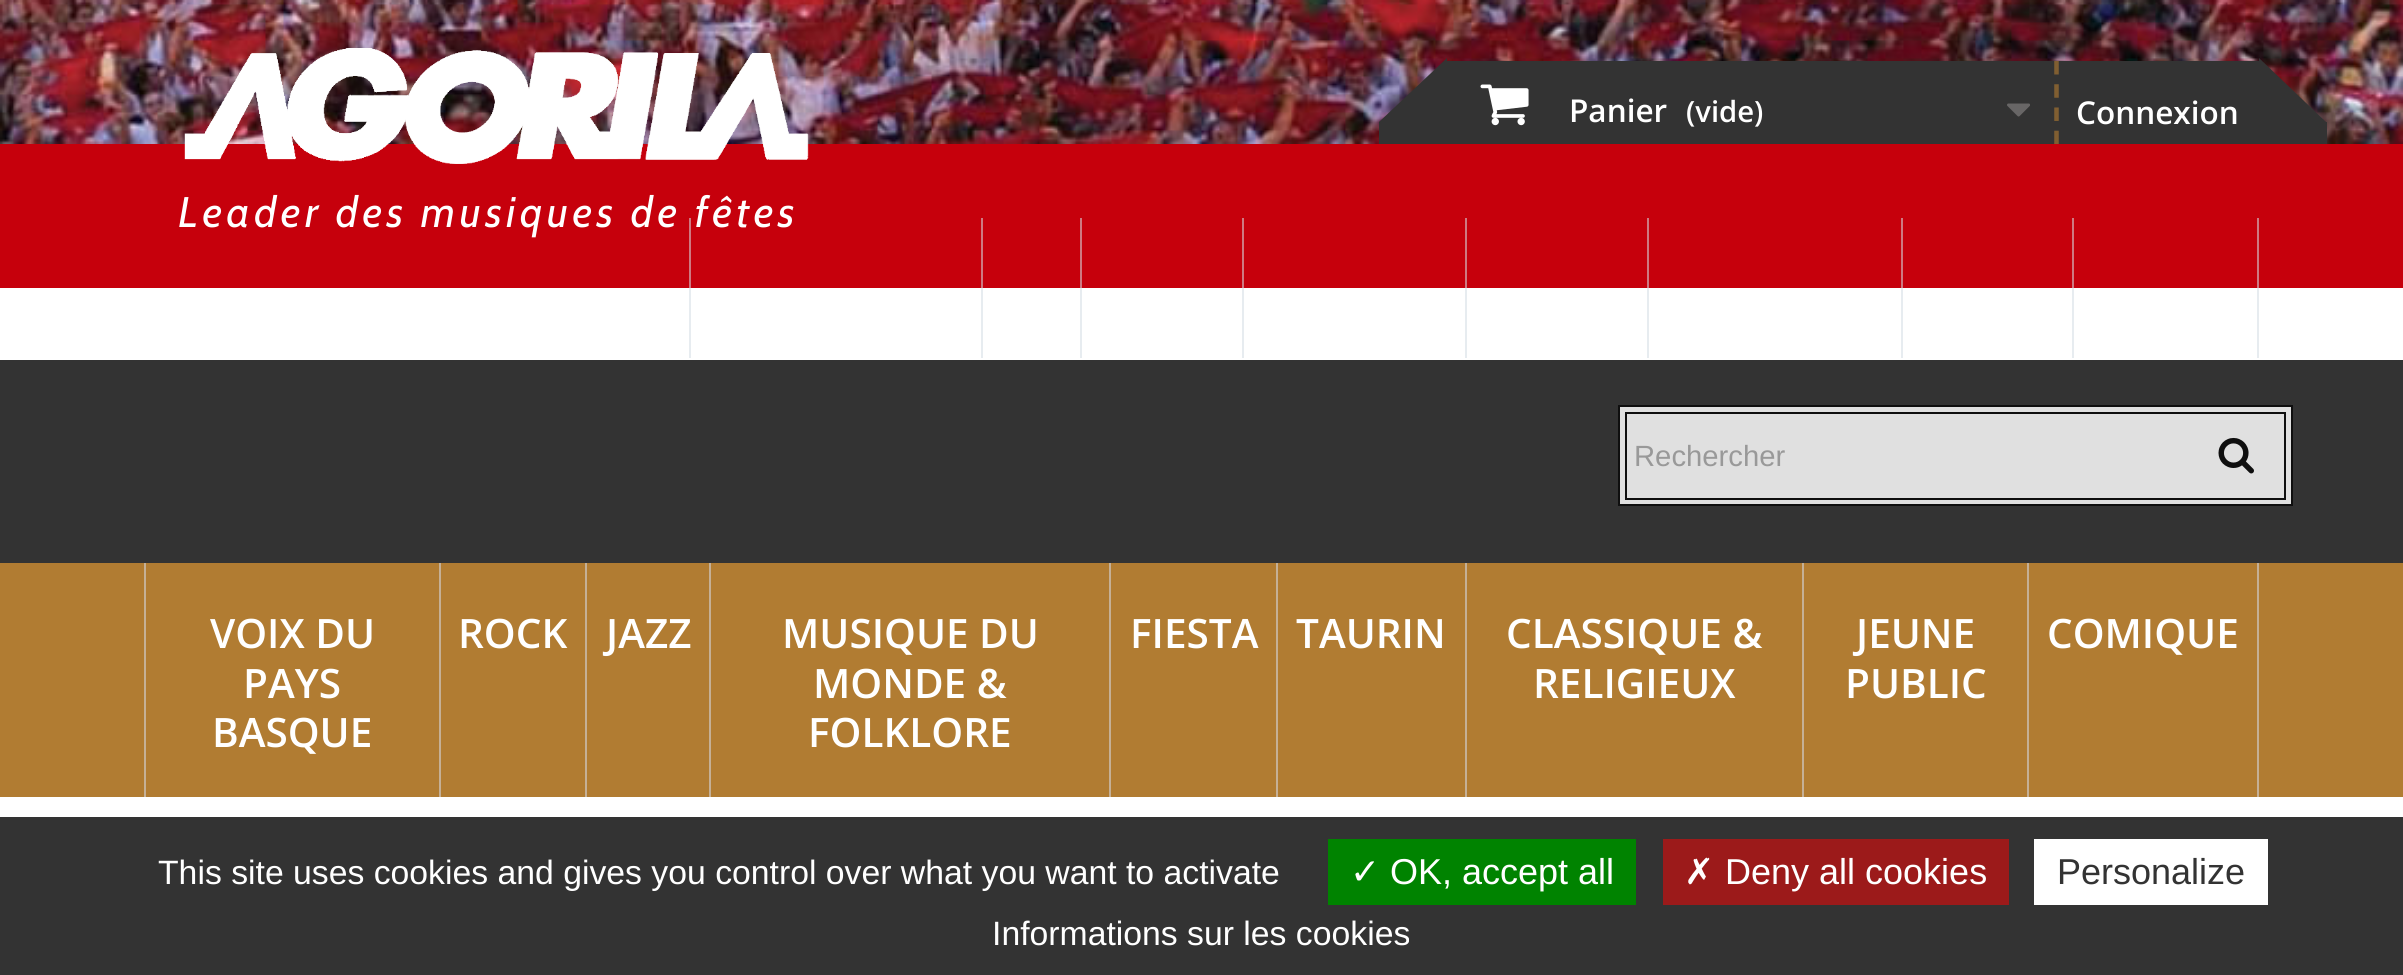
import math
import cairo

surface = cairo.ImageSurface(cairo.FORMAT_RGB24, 2403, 975)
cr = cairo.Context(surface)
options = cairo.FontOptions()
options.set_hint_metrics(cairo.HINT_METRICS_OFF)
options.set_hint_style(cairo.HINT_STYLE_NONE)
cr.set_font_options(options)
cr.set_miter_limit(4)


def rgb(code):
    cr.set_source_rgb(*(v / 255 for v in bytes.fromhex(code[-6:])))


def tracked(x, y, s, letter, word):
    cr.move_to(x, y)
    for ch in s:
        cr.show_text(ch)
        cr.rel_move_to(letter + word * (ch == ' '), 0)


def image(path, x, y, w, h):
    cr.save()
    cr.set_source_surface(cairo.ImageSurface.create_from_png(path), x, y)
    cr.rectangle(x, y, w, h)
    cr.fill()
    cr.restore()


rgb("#ffffff")
cr.paint()
for x, y, w, h, color in [
    (2257, 288, 2, 70, "#e7ecf0"),
    (2072, 288, 2, 70, "#e7ecf0"),
    (1901, 288, 2, 70, "#e7ecf0"),
    (1647, 288, 2, 70, "#e7ecf0"),
    (1465, 288, 2, 70, "#e7ecf0"),
    (1242, 288, 2, 70, "#e7ecf0"),
    (1080, 288, 2, 70, "#e7ecf0"),
    (689, 288, 2, 70, "#e7ecf0"),
    (981, 288, 2, 70, "#e7ecf0"),
]:
    rgb(color)
    cr.rectangle(x, y, w, h)
    cr.fill()
image("img/1.png", 0, 0, 2403, 144)
rgb("#333333")
cr.new_path()
cr.move_to(1447, 58)
cr.line_to(1447, 144)
cr.line_to(1379, 122)
cr.close_path()
cr.fill()
cr.rectangle(1379, 122, 68, 22)
cr.fill()
cr.rectangle(1447, 61, 812, 83)
cr.fill()
image("img/2.png", 1480, 84, 49, 42)
image("img/3.png", 2007, 103, 23, 14)
cr.new_path()
cr.move_to(2056.5, 61)
cr.line_to(2056.5, 144)
rgb("#805e31")
cr.set_line_width(4.5)
cr.set_dash([13.5, 9.74])
cr.stroke()
rgb("#333333")
cr.rectangle(2259, 122, 68, 22)
cr.fill()
cr.new_path()
cr.move_to(2259, 144)
cr.line_to(2259, 58)
cr.line_to(2326, 122)
cr.close_path()
cr.fill()
for x, y, w, h, color in [
    (0, 144, 2403, 144, "#c6000c"),
    (2257, 218, 2, 70, "#ce7982"),
    (2072, 218, 2, 70, "#ce7982"),
    (1901, 218, 2, 70, "#ce7982"),
    (1647, 218, 2, 70, "#ce7982"),
    (1465, 218, 2, 70, "#ce7982"),
    (1242, 218, 2, 70, "#ce7982"),
    (1080, 218, 2, 70, "#ce7982"),
    (689, 218, 2, 70, "#ce7982"),
    (981, 218, 2, 70, "#ce7982"),
]:
    rgb(color)
    cr.rectangle(x, y, w, h)
    cr.fill()
image("img/4.png", 184, 48, 625, 116)
rgb("#333333")
cr.rectangle(0, 360, 2403, 203)
cr.fill()
rgb("#b17c32")
cr.rectangle(0, 563, 2403, 234)
cr.fill()
rgb("#e0e0e0")
cr.rectangle(1619, 406, 673, 99)
cr.fill_preserve()
rgb("#0f0f0f")
cr.set_line_width(2)
cr.set_dash([])
cr.stroke()
cr.rectangle(1626, 413, 659, 86)
cr.stroke()
image("img/5.png", 2218, 437, 36, 37)
for x, y, w, h, color in [
    (439, 563, 2, 234, "#c5b096"),
    (144, 563, 2, 234, "#c5b096"),
    (585, 563, 2, 234, "#c5b096"),
    (709, 563, 2, 234, "#c5b096"),
    (1109, 563, 2, 234, "#c5b096"),
    (1276, 563, 2, 234, "#c5b096"),
    (1465, 563, 2, 234, "#c5b096"),
    (1802, 563, 2, 234, "#c5b096"),
    (2027, 563, 2, 234, "#c5b096"),
    (2257, 563, 2, 234, "#c5b096"),
    (0, 817, 2403, 158, "#333333"),
    (1328, 839, 308, 66, "#008300"),
    (1663, 839, 346, 66, "#9c1a1a"),
    (2034, 839, 234, 66, "#ffffff"),
]:
    rgb(color)
    cr.rectangle(x, y, w, h)
    cr.fill()
cr.select_font_face("Open Sans SemiBold")
cr.set_font_size(31.5)
cr.move_to(1569, 122)
cr.show_text("Panier")
cr.set_font_size(29.25)
cr.move_to(1686, 122)
cr.show_text("(vide)")
cr.set_font_size(31.5)
cr.move_to(2076, 124)
cr.show_text("Connexion")
cr.select_font_face("Cabin", cairo.FONT_SLANT_ITALIC)
cr.set_font_size(42.75)
tracked(178, 227, "Leader des musiques de fêtes", 4.5, 0)
cr.select_font_face("Liberation Sans")
cr.set_font_size(29.25)
rgb("#999999")
cr.move_to(1634, 466)
cr.show_text("Rechercher")
cr.select_font_face("Open Sans SemiBold")
cr.set_font_size(40.5)
rgb("#ffffff")
for x, y, s in [
    (210, 648, "VOIX DU"),
    (243, 698, "PAYS"),
    (212, 747, "BASQUE"),
    (458, 648, "ROCK"),
    (606, 648, "JAZZ"),
    (782, 648, "MUSIQUE DU"),
    (813, 698, "MONDE &"),
    (808, 747, "FOLKLORE"),
    (1130, 648, "FIESTA"),
    (1296, 648, "TAURIN"),
    (1506, 648, "CLASSIQUE &"),
    (1533, 698, "RELIGIEUX"),
    (1856, 648, "JEUNE"),
    (1845, 698, "PUBLIC"),
    (2047, 648, "COMIQUE"),
]:
    cr.move_to(x, y)
    cr.show_text(s)
cr.select_font_face("Liberation Sans")
cr.set_font_size(33.75)
cr.move_to(158, 884)
cr.show_text("This site uses cookies and gives you control over what you want to activate")
cr.select_font_face("DejaVu Sans")
cr.set_font_size(36)
cr.move_to(1350, 884)
cr.show_text("✓")
cr.select_font_face("Liberation Sans")
cr.move_to(1390, 884)
cr.show_text("OK, accept all")
cr.select_font_face("DejaVu Sans")
cr.move_to(1684, 884)
cr.show_text("✗")
cr.select_font_face("Liberation Sans")
cr.move_to(1725, 884)
cr.show_text("Deny all cookies")
rgb("#333333")
cr.move_to(2057, 884)
cr.show_text("Personalize")
cr.set_font_size(33.75)
rgb("#ffffff")
cr.move_to(992, 945)
cr.show_text("Informations sur les cookies")
surface.write_to_png("page.png")
